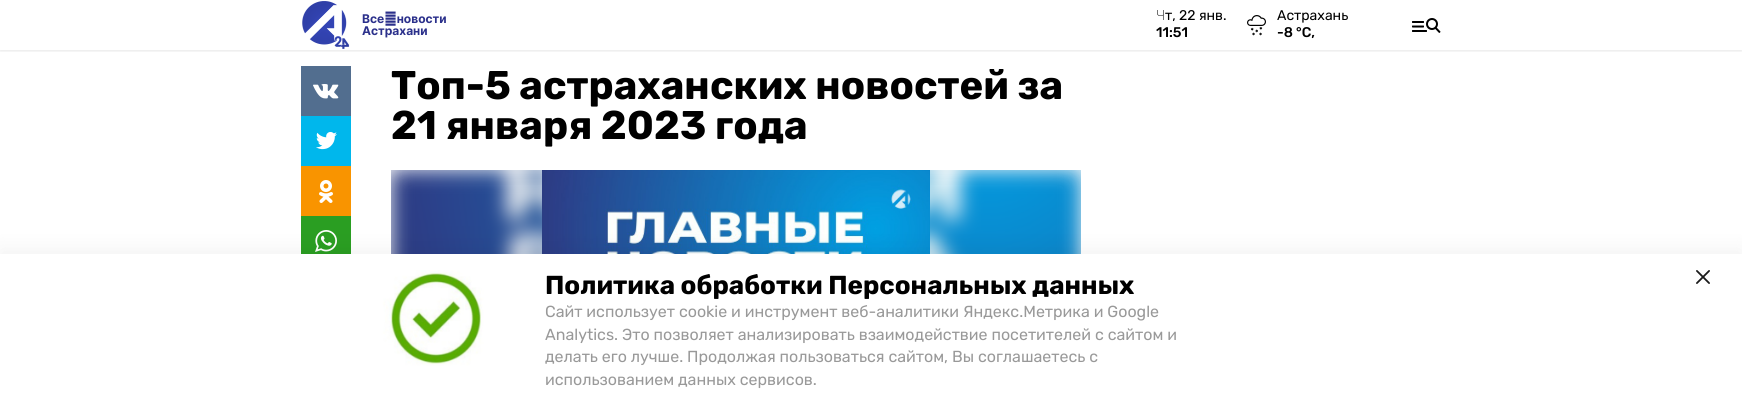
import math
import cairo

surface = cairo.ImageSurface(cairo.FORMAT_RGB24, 1742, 407)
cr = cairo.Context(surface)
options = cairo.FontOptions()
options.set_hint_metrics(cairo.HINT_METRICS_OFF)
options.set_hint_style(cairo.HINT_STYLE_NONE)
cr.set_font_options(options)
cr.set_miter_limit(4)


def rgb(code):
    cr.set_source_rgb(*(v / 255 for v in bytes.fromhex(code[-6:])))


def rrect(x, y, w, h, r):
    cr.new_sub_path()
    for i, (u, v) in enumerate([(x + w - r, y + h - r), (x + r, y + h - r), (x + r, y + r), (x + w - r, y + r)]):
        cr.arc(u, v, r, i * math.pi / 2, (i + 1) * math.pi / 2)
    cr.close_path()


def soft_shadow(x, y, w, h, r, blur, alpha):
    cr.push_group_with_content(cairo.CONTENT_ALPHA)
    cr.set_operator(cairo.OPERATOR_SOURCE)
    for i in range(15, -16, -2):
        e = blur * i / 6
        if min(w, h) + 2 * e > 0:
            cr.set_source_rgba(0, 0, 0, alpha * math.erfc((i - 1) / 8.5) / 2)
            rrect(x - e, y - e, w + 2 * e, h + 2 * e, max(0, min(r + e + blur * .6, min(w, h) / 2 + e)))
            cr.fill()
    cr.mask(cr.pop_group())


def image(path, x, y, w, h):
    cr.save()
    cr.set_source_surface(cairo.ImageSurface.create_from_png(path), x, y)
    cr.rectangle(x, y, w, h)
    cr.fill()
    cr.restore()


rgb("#ffffff")
cr.paint()
cr.save()
cr.rectangle(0, 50, 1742, 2)
cr.clip()
rgb("#000000")
soft_shadow(0, 1, 1742, 50, 0, 1.5, 0.1)
cr.restore()
image("img/1.png", 302, 1, 48, 48)
image("img/2.png", 1247, 15, 19, 21)
image("img/3.png", 1412, 18, 29, 15)
rgb("#526e8f")
cr.rectangle(301, 66, 50, 50)
cr.fill()
image("img/4.png", 313, 84, 26, 15)
rgb("#00b7ec")
cr.rectangle(301, 116, 50, 50)
cr.fill()
image("img/5.png", 316, 132, 21, 18)
rgb("#f99400")
cr.rectangle(301, 166, 50, 50)
cr.fill()
image("img/6.png", 319, 180, 14, 23)
rgb("#2a9e22")
cr.rectangle(301, 216, 50, 38)
cr.fill()
image("img/7.png", 315, 230, 22, 22)
rgb("#f7f7f7")
cr.rectangle(391, 170, 690, 84)
cr.fill()
image("img/8.png", 391, 170, 690, 84)
image("img/9.png", 542, 170, 388, 84)
rgb("#000000")
soft_shadow(0, 249, 1742, 153, 0, 10, 0.05)
rgb("#ffffff")
cr.rectangle(0, 254, 1742, 153)
cr.fill()
image("img/10.png", 351, 270, 170, 96)
image("img/11.png", 1696, 270, 14, 14)
cr.select_font_face("Inter", cairo.FONT_SLANT_NORMAL, cairo.FONT_WEIGHT_BOLD)
cr.set_font_size(12)
rgb("#2b308b")
cr.move_to(362, 23)
cr.show_text("Все новости")
cr.move_to(362, 35)
cr.show_text("Астрахани")
cr.select_font_face("Noto Sans ExtraLight")
cr.set_font_size(14)
rgb("#000000")
cr.move_to(1156, 20)
cr.show_text("Ч")
cr.select_font_face("Rubik")
cr.move_to(1165, 20)
cr.show_text("т, 22 янв.")
cr.select_font_face("Rubik Medium")
cr.move_to(1156, 37)
cr.show_text("11:51")
cr.select_font_face("Rubik")
cr.move_to(1277, 20)
cr.show_text("Астрахань")
cr.select_font_face("Rubik Medium")
cr.move_to(1277, 37)
cr.show_text("-8 °С,")
cr.select_font_face("Rubik", cairo.FONT_SLANT_NORMAL, cairo.FONT_WEIGHT_BOLD)
cr.set_font_size(40)
cr.move_to(391, 99)
cr.show_text("Топ-5 астраханских новостей за")
cr.move_to(391, 139)
cr.show_text("21 января 2023 года")
cr.set_font_size(26)
cr.move_to(545, 294)
cr.show_text("Политика обработки Персональных данных")
cr.select_font_face("Rubik")
cr.set_font_size(16)
rgb("#999999")
for x, y, s in [
    (545, 317, "Сайт использует cookie и инструмент веб-аналитики Яндекс.Метрика и Google"),
    (545, 340, "Analytics. Это позволяет анализировать взаимодействие посетителей с сайтом и"),
    (545, 362, "делать его лучше. Продолжая пользоваться сайтом, Вы соглашаетесь с"),
    (545, 385, "использованием данных сервисов."),
]:
    cr.move_to(x, y)
    cr.show_text(s)
surface.write_to_png("page.png")
